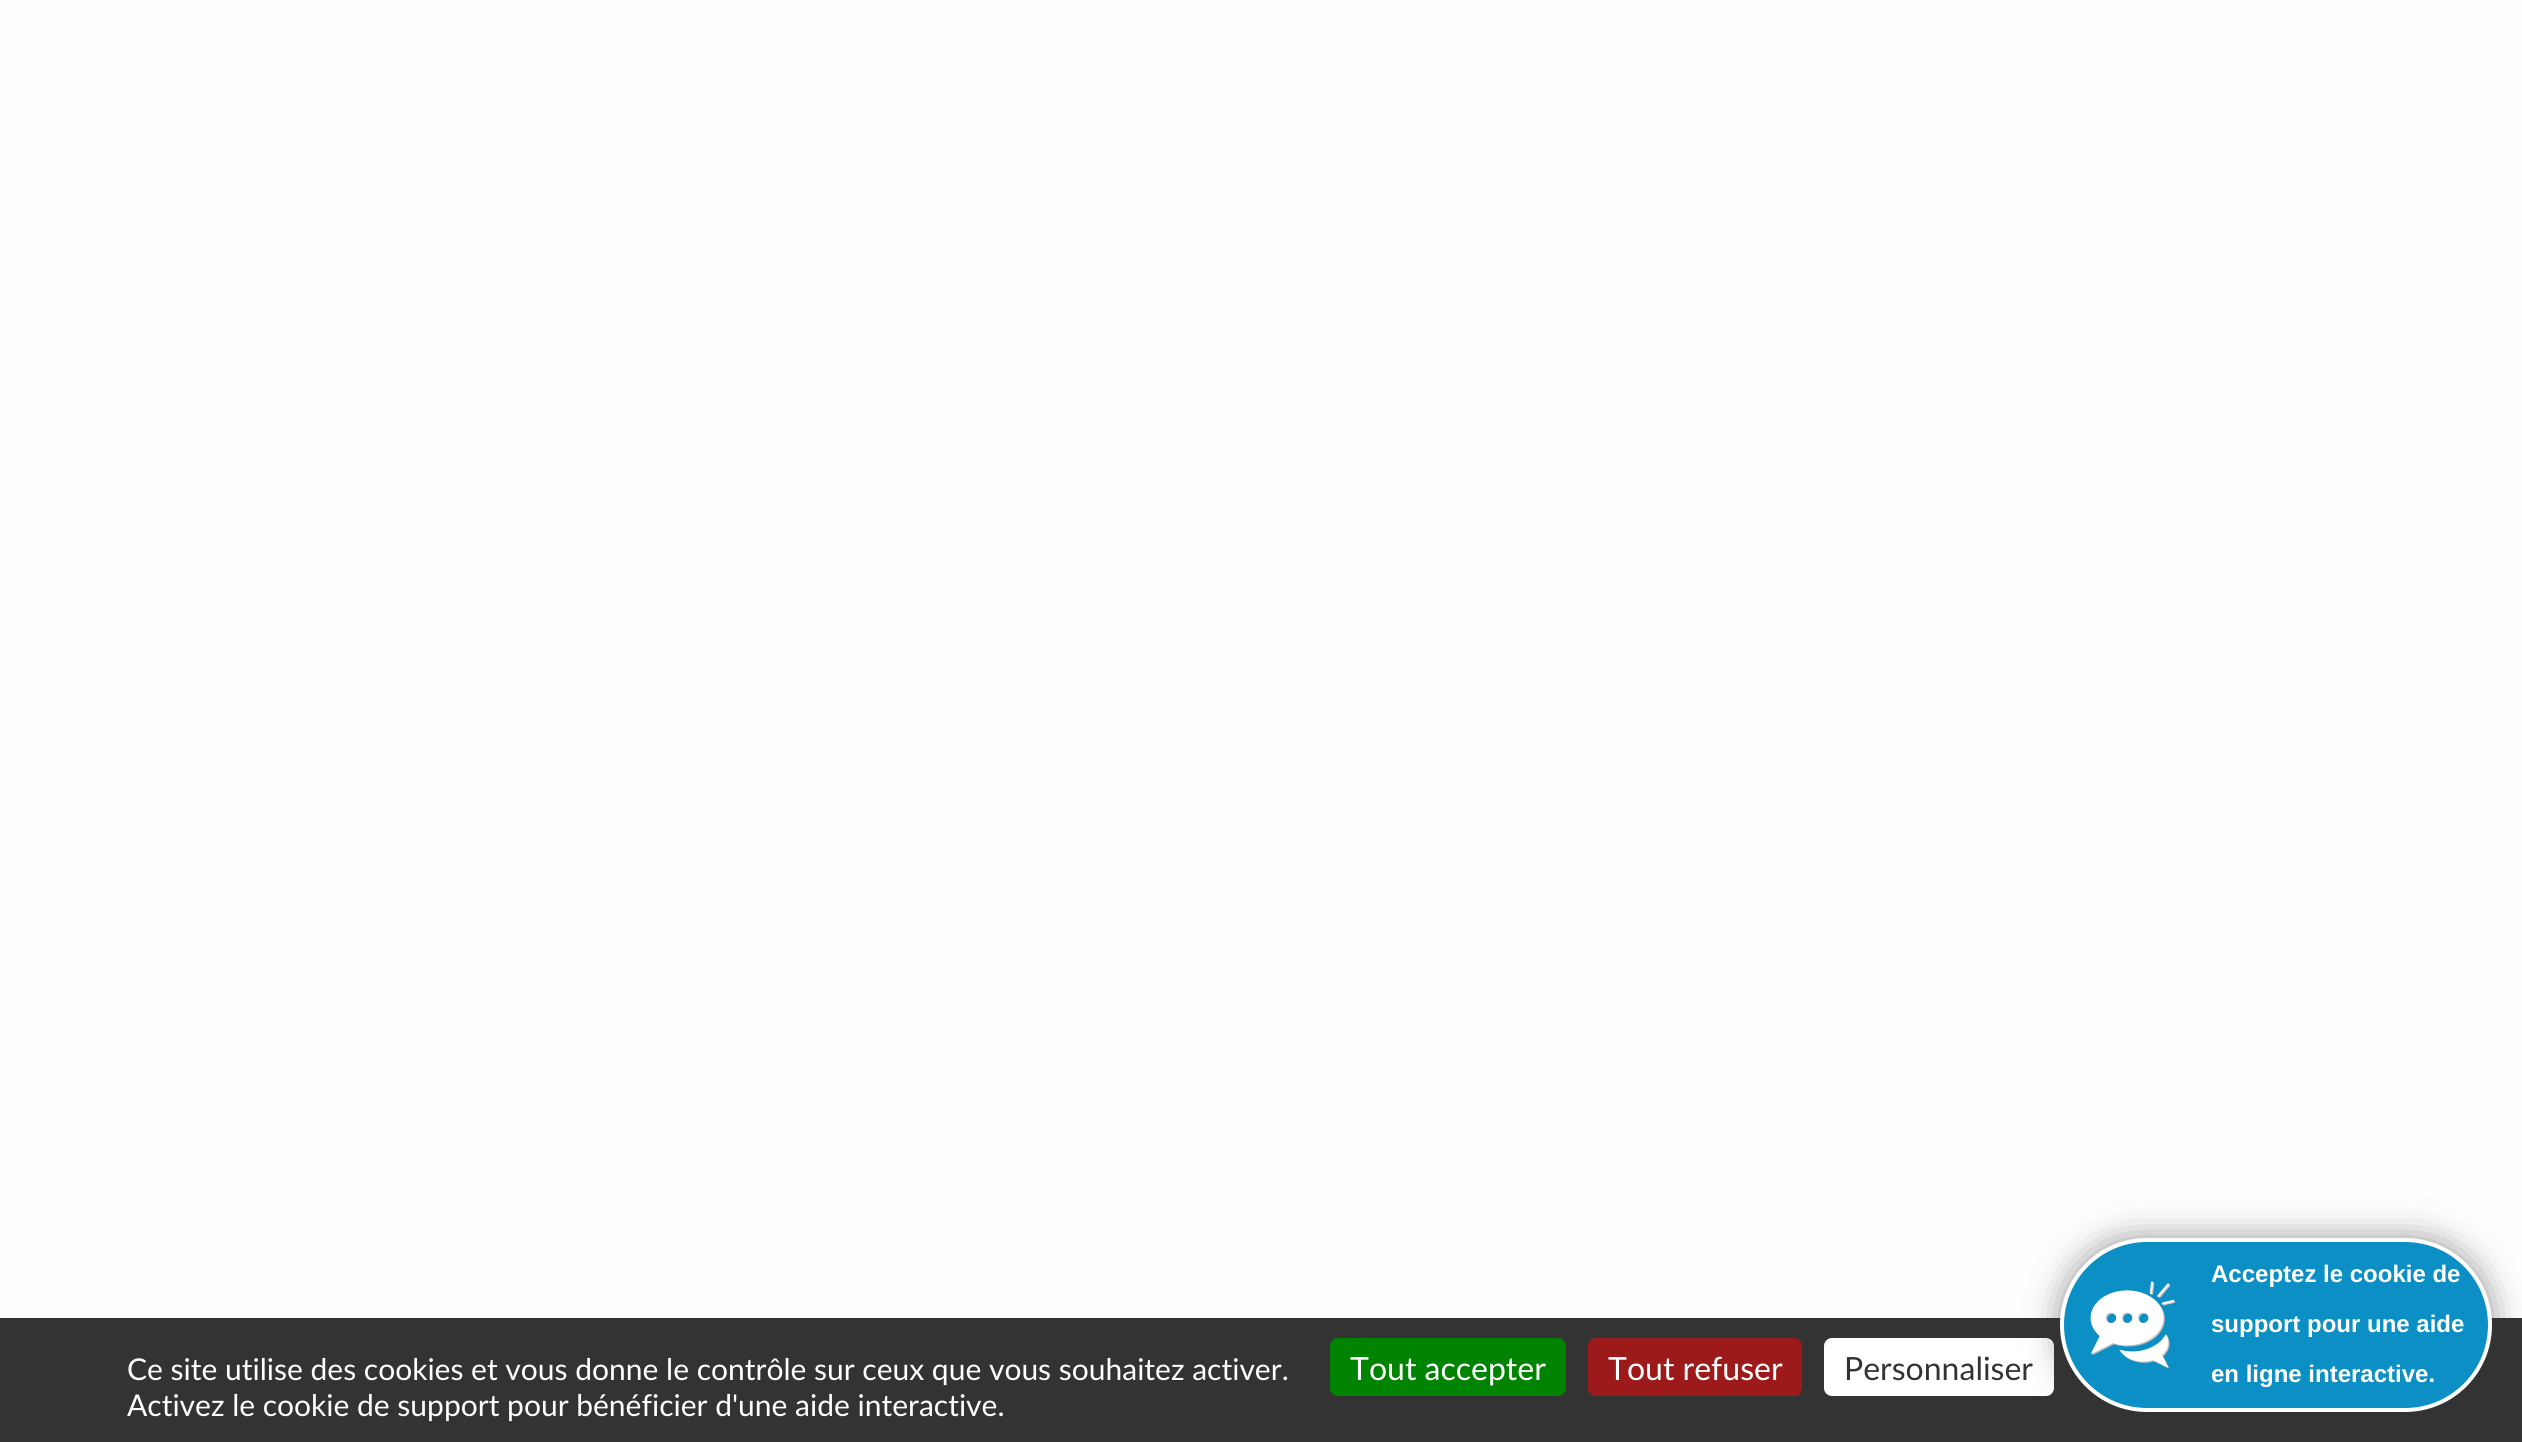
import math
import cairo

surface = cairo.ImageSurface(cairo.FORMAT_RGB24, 2522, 1442)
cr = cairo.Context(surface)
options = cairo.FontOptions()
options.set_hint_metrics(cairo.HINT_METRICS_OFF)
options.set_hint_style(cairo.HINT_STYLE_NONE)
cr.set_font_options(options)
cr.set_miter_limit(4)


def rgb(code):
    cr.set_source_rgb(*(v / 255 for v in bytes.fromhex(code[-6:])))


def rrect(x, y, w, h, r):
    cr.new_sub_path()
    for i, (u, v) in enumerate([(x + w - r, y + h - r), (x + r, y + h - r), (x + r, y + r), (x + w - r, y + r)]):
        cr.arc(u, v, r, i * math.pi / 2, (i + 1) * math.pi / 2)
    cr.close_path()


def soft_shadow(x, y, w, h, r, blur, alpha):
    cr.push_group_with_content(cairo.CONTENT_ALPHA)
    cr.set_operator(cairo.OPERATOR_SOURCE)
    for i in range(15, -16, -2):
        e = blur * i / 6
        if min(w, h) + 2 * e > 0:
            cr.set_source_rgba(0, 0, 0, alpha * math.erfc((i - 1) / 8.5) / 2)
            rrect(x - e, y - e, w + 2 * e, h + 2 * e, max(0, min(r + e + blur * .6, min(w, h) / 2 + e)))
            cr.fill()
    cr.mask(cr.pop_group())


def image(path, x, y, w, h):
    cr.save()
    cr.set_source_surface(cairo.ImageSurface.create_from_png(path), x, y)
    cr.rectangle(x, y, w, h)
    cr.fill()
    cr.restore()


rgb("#fefefe")
cr.paint()
rgb("#333333")
cr.rectangle(0, 1318, 2522, 124)
cr.fill()
rgb("#008300")
rrect(1330, 1338, 236, 58, 8)
cr.fill()
rgb("#9c1a1a")
rrect(1588, 1338, 214, 58, 8)
cr.fill()
rgb("#ffffff")
rrect(1824, 1338, 230, 58, 8)
cr.fill()
rgb("#323232")
soft_shadow(2060, 1238, 432, 174, 87, 17, 0.5)
rgb("#0c8fc4")
rrect(2062, 1240, 428, 170, 85)
cr.fill_preserve()
rgb("#ffffff")
cr.set_line_width(4)
cr.stroke()
image("img/1.png", 2090, 1281, 86, 88)
cr.select_font_face("Lato")
cr.set_font_size(30)
cr.move_to(127, 1380)
cr.show_text("Ce site utilise des cookies et vous donne le contrôle sur ceux que vous souhaitez activer.")
cr.move_to(127, 1416)
cr.show_text("Activez le cookie de support pour bénéficier d'une aide interactive.")
cr.set_font_size(32)
cr.move_to(1350, 1380)
cr.show_text("Tout accepter")
cr.move_to(1608, 1380)
cr.show_text("Tout refuser")
rgb("#333333")
cr.move_to(1844, 1380)
cr.show_text("Personnaliser")
cr.select_font_face("Liberation Sans", cairo.FONT_SLANT_NORMAL, cairo.FONT_WEIGHT_BOLD)
cr.set_font_size(24)
rgb("#ffffff")
for x, y, s in [
    (2211, 1282, "Acceptez le cookie de"),
    (2211, 1332, "support pour une aide"),
    (2211, 1382, "en ligne interactive."),
]:
    cr.move_to(x, y)
    cr.show_text(s)
surface.write_to_png("page.png")
